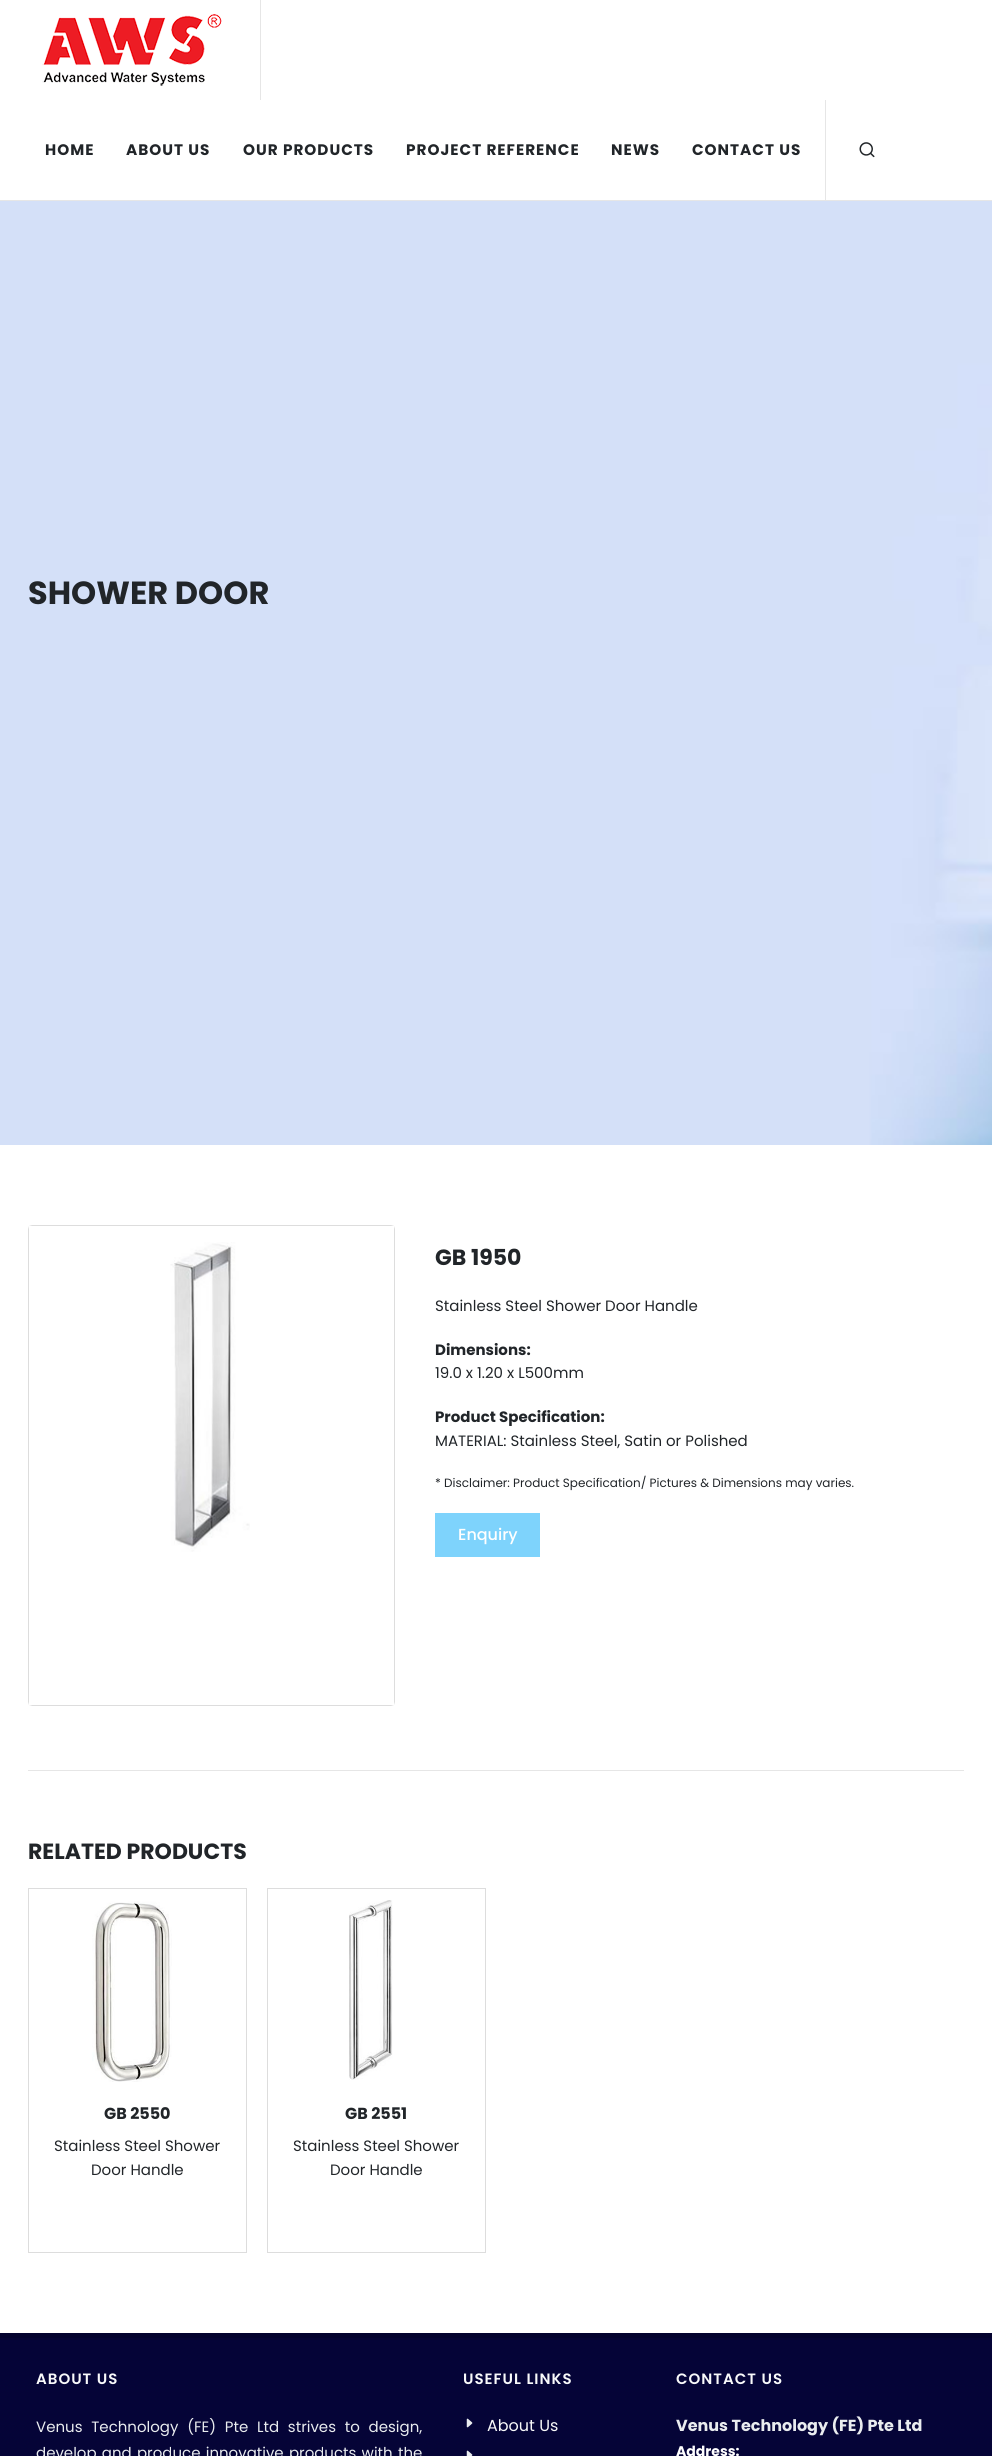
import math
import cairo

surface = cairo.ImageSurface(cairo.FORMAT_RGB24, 992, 2456)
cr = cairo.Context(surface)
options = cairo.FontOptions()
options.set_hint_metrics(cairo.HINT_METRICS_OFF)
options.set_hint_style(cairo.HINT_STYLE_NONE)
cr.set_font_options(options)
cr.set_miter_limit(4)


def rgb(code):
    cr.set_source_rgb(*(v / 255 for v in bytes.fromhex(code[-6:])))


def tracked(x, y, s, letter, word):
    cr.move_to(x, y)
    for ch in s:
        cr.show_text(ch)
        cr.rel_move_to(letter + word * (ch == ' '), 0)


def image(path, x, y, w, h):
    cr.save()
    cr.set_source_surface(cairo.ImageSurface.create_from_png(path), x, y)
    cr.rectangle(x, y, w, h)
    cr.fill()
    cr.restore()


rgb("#ffffff")
cr.paint()
rgb("#e6e6e6")
cr.rectangle(0, 200, 992, 1)
cr.fill()
cr.rectangle(260, 0, 1, 100)
cr.fill()
image("img/1.png", 42, 14, 180, 72)
cr.rectangle(825, 100, 1, 100)
cr.fill()
image("img/2.png", 859, 142, 16, 16)
image("img/3.png", 0, 201, 992, 944)
rgb("#dddddd")
cr.set_fill_rule(cairo.FILL_RULE_EVEN_ODD)
cr.new_path()
cr.move_to(28, 1229)
cr.line_to(28, 1702)
cr.line_to(29, 1705)
cr.line_to(29, 1226)
cr.close_path()
cr.move_to(32, 1225)
cr.line_to(29, 1226)
cr.line_to(394, 1226)
cr.line_to(391, 1225)
cr.close_path()
cr.move_to(395, 1229)
cr.line_to(394, 1226)
cr.line_to(394, 1705)
cr.line_to(395, 1702)
cr.close_path()
cr.move_to(391, 1706)
cr.line_to(394, 1705)
cr.line_to(29, 1705)
cr.line_to(32, 1706)
cr.close_path()
cr.fill()
image("img/4.png", 170, 1242, 80, 310)
rgb("#7ed3fc")
cr.rectangle(435, 1513, 105, 44)
cr.fill()
rgb("#e6e6e6")
cr.rectangle(28, 1770, 936, 1)
cr.fill()
cr.rectangle(28.5, 1888.5, 218, 364)
rgb("#dddddd")
cr.set_line_width(1)
cr.stroke()
image("img/5.png", 92, 1901, 80, 181)
cr.rectangle(267.5, 1888.5, 218, 364)
cr.stroke()
image("img/6.png", 349, 1900, 44, 180)
rgb("#050437")
cr.rectangle(0, 2338, 992, 118)
cr.fill()
rgb("#04032f")
cr.rectangle(0, 2333, 992, 5)
cr.fill()
image("img/7.png", 466, 2418, 7, 10)
image("img/8.png", 466, 2450, 7, 6)
cr.select_font_face("Poppins", cairo.FONT_SLANT_NORMAL, cairo.FONT_WEIGHT_BOLD)
cr.set_font_size(15.25)
rgb("#212529")
for x, y, s in [
    (45, 155, "HOME"),
    (126, 155, "ABOUT US"),
    (243, 155, "OUR PRODUCTS"),
    (406, 155, "PROJECT REFERENCE"),
    (611, 155, "NEWS"),
    (692, 155, "CONTACT US"),
]:
    tracked(x, y, s, 1, 0)
cr.set_font_size(32)
cr.move_to(28, 604)
cr.show_text("SHOWER DOOR")
cr.set_font_size(22)
cr.move_to(435, 1265)
cr.show_text("GB 1950")
cr.select_font_face("Poppins")
cr.set_font_size(15)
cr.move_to(435, 1311)
cr.show_text("Stainless Steel Shower Door Handle")
cr.select_font_face("Poppins", cairo.FONT_SLANT_NORMAL, cairo.FONT_WEIGHT_BOLD)
cr.move_to(435, 1355)
cr.show_text("Dimensions:")
cr.select_font_face("Poppins")
cr.move_to(435, 1378)
cr.show_text("19.0 x 1.20 x L500mm")
cr.select_font_face("Poppins", cairo.FONT_SLANT_NORMAL, cairo.FONT_WEIGHT_BOLD)
cr.move_to(435, 1422)
cr.show_text("Product Specification:")
cr.select_font_face("Poppins")
cr.move_to(435, 1446)
cr.show_text("MATERIAL: Stainless Steel, Satin or Polished")
cr.set_font_size(12)
cr.move_to(435, 1487)
cr.show_text("* Disclaimer: Product Specification/ Pictures & Dimensions may varies.")
cr.select_font_face("Poppins Medium")
cr.set_font_size(16)
rgb("#ffffff")
cr.move_to(458, 1540)
cr.show_text("Enquiry")
cr.select_font_face("Poppins", cairo.FONT_SLANT_NORMAL, cairo.FONT_WEIGHT_BOLD)
cr.set_font_size(22)
rgb("#212529")
cr.move_to(28, 1859)
cr.show_text("RELATED PRODUCTS")
cr.set_font_size(16)
cr.move_to(104, 2119)
cr.show_text("GB 2550")
cr.select_font_face("Poppins")
cr.set_font_size(15)
cr.move_to(54, 2151)
cr.show_text("Stainless Steel Shower")
cr.move_to(91, 2175)
cr.show_text("Door Handle")
cr.select_font_face("Poppins", cairo.FONT_SLANT_NORMAL, cairo.FONT_WEIGHT_BOLD)
cr.set_font_size(16)
cr.move_to(345, 2119)
cr.show_text("GB 2551")
cr.select_font_face("Poppins")
cr.set_font_size(15)
cr.move_to(293, 2151)
cr.show_text("Stainless Steel Shower")
cr.move_to(330, 2175)
cr.show_text("Door Handle")
cr.select_font_face("Poppins SemiBold")
rgb("#f8f9fa")
tracked(36, 2384, "ABOUT US", 1, 0)
cr.select_font_face("Poppins")
rgb("#e9ecef")
tracked(36, 2432, "Venus Technology (FE) Pte Ltd strives to design,", 0, 4.75)
tracked(36, 2458, "develop and produce innovative products with the", 0, 1.25)
cr.select_font_face("Poppins SemiBold")
rgb("#f8f9fa")
tracked(463, 2384, "USEFUL LINKS", 1, 0)
cr.select_font_face("Poppins")
cr.set_font_size(16)
cr.move_to(487, 2431)
cr.show_text("About Us")
cr.select_font_face("Poppins SemiBold")
cr.set_font_size(15)
tracked(676, 2384, "CONTACT US", 1, 0)
cr.select_font_face("Poppins", cairo.FONT_SLANT_NORMAL, cairo.FONT_WEIGHT_BOLD)
cr.set_font_size(16)
rgb("#e9ecef")
cr.move_to(676, 2431)
cr.show_text("Venus Technology (FE) Pte Ltd")
cr.set_font_size(14)
rgb("#ffffff")
cr.move_to(676, 2456)
cr.show_text("Address:")
surface.write_to_png("page.png")
